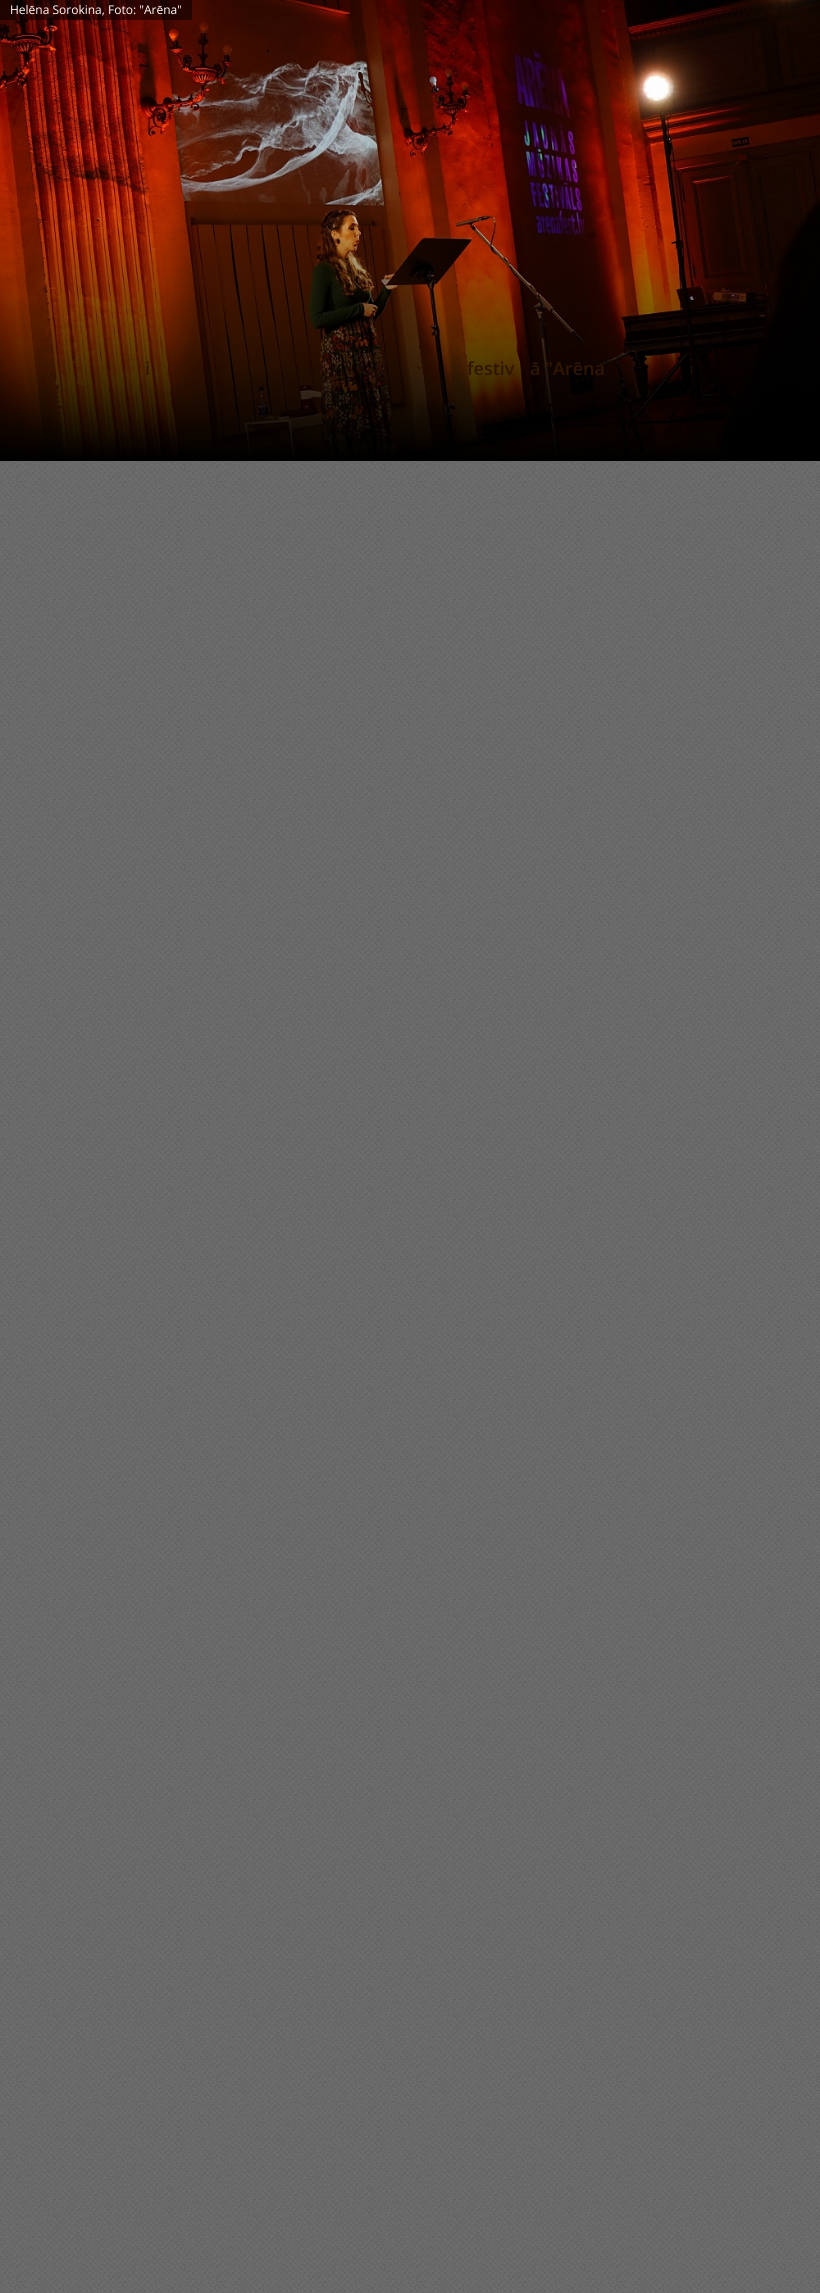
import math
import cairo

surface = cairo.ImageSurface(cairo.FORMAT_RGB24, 820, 2293)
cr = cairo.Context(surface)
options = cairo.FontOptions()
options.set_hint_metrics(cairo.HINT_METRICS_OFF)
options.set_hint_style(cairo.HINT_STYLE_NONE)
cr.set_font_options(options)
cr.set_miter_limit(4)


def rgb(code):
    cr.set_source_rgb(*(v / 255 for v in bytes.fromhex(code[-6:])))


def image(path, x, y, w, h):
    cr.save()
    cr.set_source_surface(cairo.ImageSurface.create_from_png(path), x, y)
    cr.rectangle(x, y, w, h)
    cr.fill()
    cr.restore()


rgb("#ffffff")
cr.paint()
image("img/1.png", 0, 461, 820, 1832)
image("img/2.png", 0, 0, 820, 461)
cr.set_source_rgba(0, 0, 0, 0.5)
cr.rectangle(0, 0, 192, 20)
cr.fill()
cr.select_font_face("Open Sans")
cr.set_font_size(12)
rgb("#ffffff")
cr.move_to(10, 14)
cr.show_text("Helēna Sorokina, Foto: \"Arēna\"")
cr.select_font_face("Open Sans SemiBold")
cr.set_font_size(18)
rgb("#2f1502")
for x, y, s in [
    (145, 375, "i"),
    (467, 375, "festiv"),
    (530, 375, "ā \"Arēna"),
]:
    cr.move_to(x, y)
    cr.show_text(s)
surface.write_to_png("page.png")
